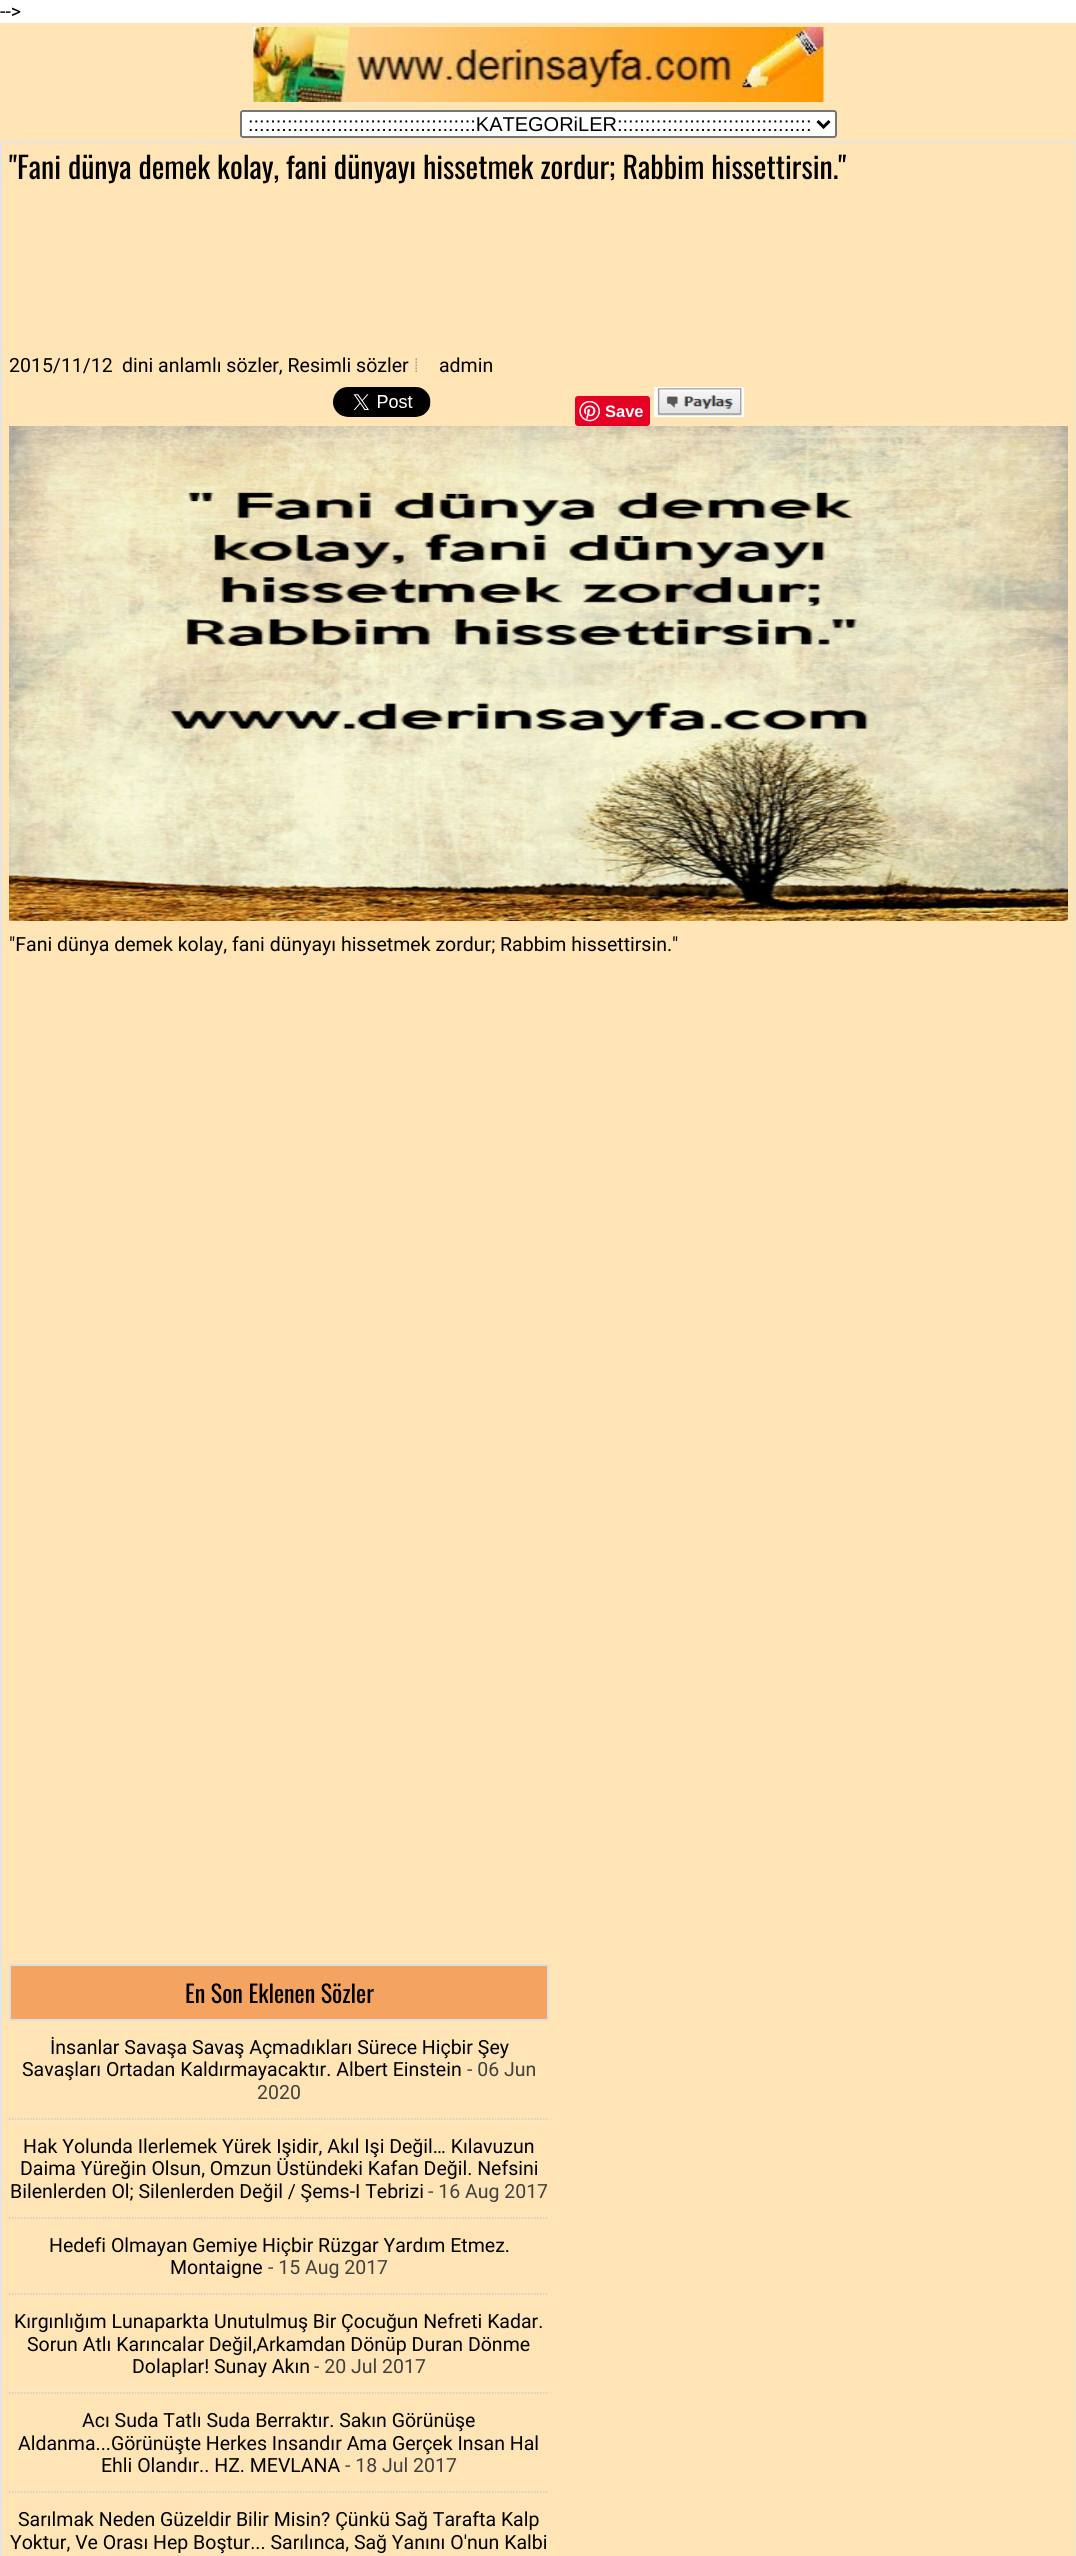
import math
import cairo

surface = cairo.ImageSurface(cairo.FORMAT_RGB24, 1076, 2556)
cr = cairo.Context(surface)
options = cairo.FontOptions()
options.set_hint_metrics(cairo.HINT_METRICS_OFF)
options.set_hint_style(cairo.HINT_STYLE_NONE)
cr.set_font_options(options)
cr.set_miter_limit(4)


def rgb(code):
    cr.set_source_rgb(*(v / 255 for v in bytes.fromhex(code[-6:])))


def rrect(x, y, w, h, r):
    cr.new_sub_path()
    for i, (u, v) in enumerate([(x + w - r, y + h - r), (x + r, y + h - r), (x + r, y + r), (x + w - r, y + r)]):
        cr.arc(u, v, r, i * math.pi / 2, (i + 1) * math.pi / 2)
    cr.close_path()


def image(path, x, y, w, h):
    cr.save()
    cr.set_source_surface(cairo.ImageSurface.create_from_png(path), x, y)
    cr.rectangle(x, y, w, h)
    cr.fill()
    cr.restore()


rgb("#ffffff")
cr.paint()
rgb("#ffe4b5")
cr.rectangle(0, 23, 1076, 118)
cr.fill()
image("img/1.png", 253, 27, 571, 75)
rgb("#ffffff")
rrect(241, 111, 595, 26, 2)
cr.fill_preserve()
rgb("#767676")
cr.stroke()
cr.new_path()
cr.move_to(817.5, 121)
cr.line_to(823.5, 127)
cr.line_to(829.5, 121)
rgb("#000000")
cr.set_line_width(3)
cr.stroke()
rgb("#ffe4b5")
cr.rectangle(1, 142, 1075, 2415)
cr.fill_preserve()
rgb("#e5e5e5")
cr.set_line_width(2)
cr.stroke()
image("img/2.png", 415, 358, 2, 14)
image("img/3.png", 333, 387, 98, 30)
rgb("#e60023")
rrect(575, 396, 75, 30, 3)
cr.fill()
image("img/4.png", 579, 401, 21, 21)
image("img/5.png", 654, 387, 90, 30)
image("img/6.png", 9, 426, 1059, 495)
rgb("#f4a460")
cr.rectangle(10, 1965, 538, 55)
cr.fill_preserve()
rgb("#dfdfdf")
cr.stroke()
cr.new_path()
cr.move_to(9, 2119)
cr.line_to(549, 2119)
rgb("#cccccc")
cr.set_line_width(1.5)
cr.set_dash([1.5, 1.5])
cr.stroke()
cr.new_path()
cr.move_to(9, 2218)
cr.line_to(549, 2218)
cr.stroke()
cr.new_path()
cr.move_to(9, 2294)
cr.line_to(549, 2294)
cr.stroke()
cr.new_path()
cr.move_to(9, 2393)
cr.line_to(549, 2393)
cr.stroke()
cr.new_path()
cr.move_to(9, 2492)
cr.line_to(549, 2492)
cr.stroke()
cr.select_font_face("Roboto")
cr.set_font_size(19.5)
rgb("#000000")
cr.move_to(0, 18)
cr.show_text("-->")
cr.select_font_face("Liberation Sans")
cr.set_font_size(20)
cr.move_to(248, 131)
cr.show_text(":::::::::::::::::::::::::::::::::::::::::KATEGORiLER:::::::::::::::::::::::::::::::::::")
cr.select_font_face("Oswald")
cr.set_font_size(30)
cr.move_to(9, 179)
cr.show_text("\"Fani dünya demek kolay, fani dünyayı hissetmek zordur; Rabbim hissettirsin.\"")
cr.select_font_face("Roboto")
cr.set_font_size(19.5)
for x, y, s in [
    (9, 372, "2015/11/12"),
    (122, 372, "dini anlamlı sözler, Resimli sözler"),
    (439, 372, "admin"),
]:
    cr.move_to(x, y)
    cr.show_text(s)
cr.select_font_face("Liberation Sans", cairo.FONT_SLANT_NORMAL, cairo.FONT_WEIGHT_BOLD)
cr.set_font_size(16.5)
rgb("#ffffff")
cr.move_to(605, 417)
cr.show_text("Save")
cr.select_font_face("Roboto")
cr.set_font_size(19.5)
rgb("#000000")
cr.move_to(9, 951)
cr.show_text("\"Fani dünya demek kolay, fani dünyayı hissetmek zordur; Rabbim hissettirsin.\"")
cr.select_font_face("Oswald")
cr.set_font_size(24)
cr.move_to(185, 2003)
cr.show_text("En Son Eklenen Sözler")
cr.select_font_face("Roboto")
cr.set_font_size(19.5)
cr.move_to(50, 2054)
cr.show_text("İnsanlar Savaşa Savaş Açmadıkları Sürece Hiçbir Şey")
cr.move_to(22, 2076)
cr.show_text("Savaşları Ortadan Kaldırmayacaktır. Albert Einstein")
rgb("#404040")
cr.move_to(467, 2076)
cr.show_text("- 06 Jun")
cr.move_to(257, 2099)
cr.show_text("2020")
rgb("#000000")
for x, y, s in [
    (23, 2153, "Hak Yolunda Ilerlemek Yürek Işidir, Akıl Işi Değil… Kılavuzun"),
    (20, 2175, "Daima Yüreğin Olsun, Omzun Üstündeki Kafan Değil. Nefsini"),
    (10, 2198, "Bilenlerden Ol; Silenlerden Değil / Şems-I Tebrizi"),
]:
    cr.move_to(x, y)
    cr.show_text(s)
rgb("#404040")
cr.move_to(428, 2198)
cr.show_text("- 16 Aug 2017")
rgb("#000000")
cr.move_to(49, 2252)
cr.show_text("Hedefi Olmayan Gemiye Hiçbir Rüzgar Yardım Etmez.")
cr.move_to(170, 2274)
cr.show_text("Montaigne")
rgb("#404040")
cr.move_to(268, 2274)
cr.show_text("- 15 Aug 2017")
rgb("#000000")
for x, y, s in [
    (14, 2328, "Kırgınlığım Lunaparkta Unutulmuş Bir Çocuğun Nefreti Kadar."),
    (27, 2351, "Sorun Atlı Karıncalar Değil,Arkamdan Dönüp Duran Dönme"),
    (132, 2373, "Dolaplar! Sunay Akın"),
]:
    cr.move_to(x, y)
    cr.show_text(s)
rgb("#404040")
cr.move_to(314, 2373)
cr.show_text("- 20 Jul 2017")
rgb("#000000")
for x, y, s in [
    (82, 2427, "Acı Suda Tatlı Suda Berraktır. Sakın Görünüşe"),
    (18, 2450, "Aldanma...Görünüşte Herkes Insandır Ama Gerçek Insan Hal"),
    (101, 2472, "Ehli Olandır.. HZ. MEVLANA"),
]:
    cr.move_to(x, y)
    cr.show_text(s)
rgb("#404040")
cr.move_to(345, 2472)
cr.show_text("- 18 Jul 2017")
rgb("#000000")
cr.move_to(18, 2526)
cr.show_text("Sarılmak Neden Güzeldir Bilir Misin? Çünkü Sağ Tarafta Kalp")
cr.move_to(10, 2549)
cr.show_text("Yoktur, Ve Orası Hep Boştur... Sarılınca, Sağ Yanını O'nun Kalbi")
surface.write_to_png("page.png")
